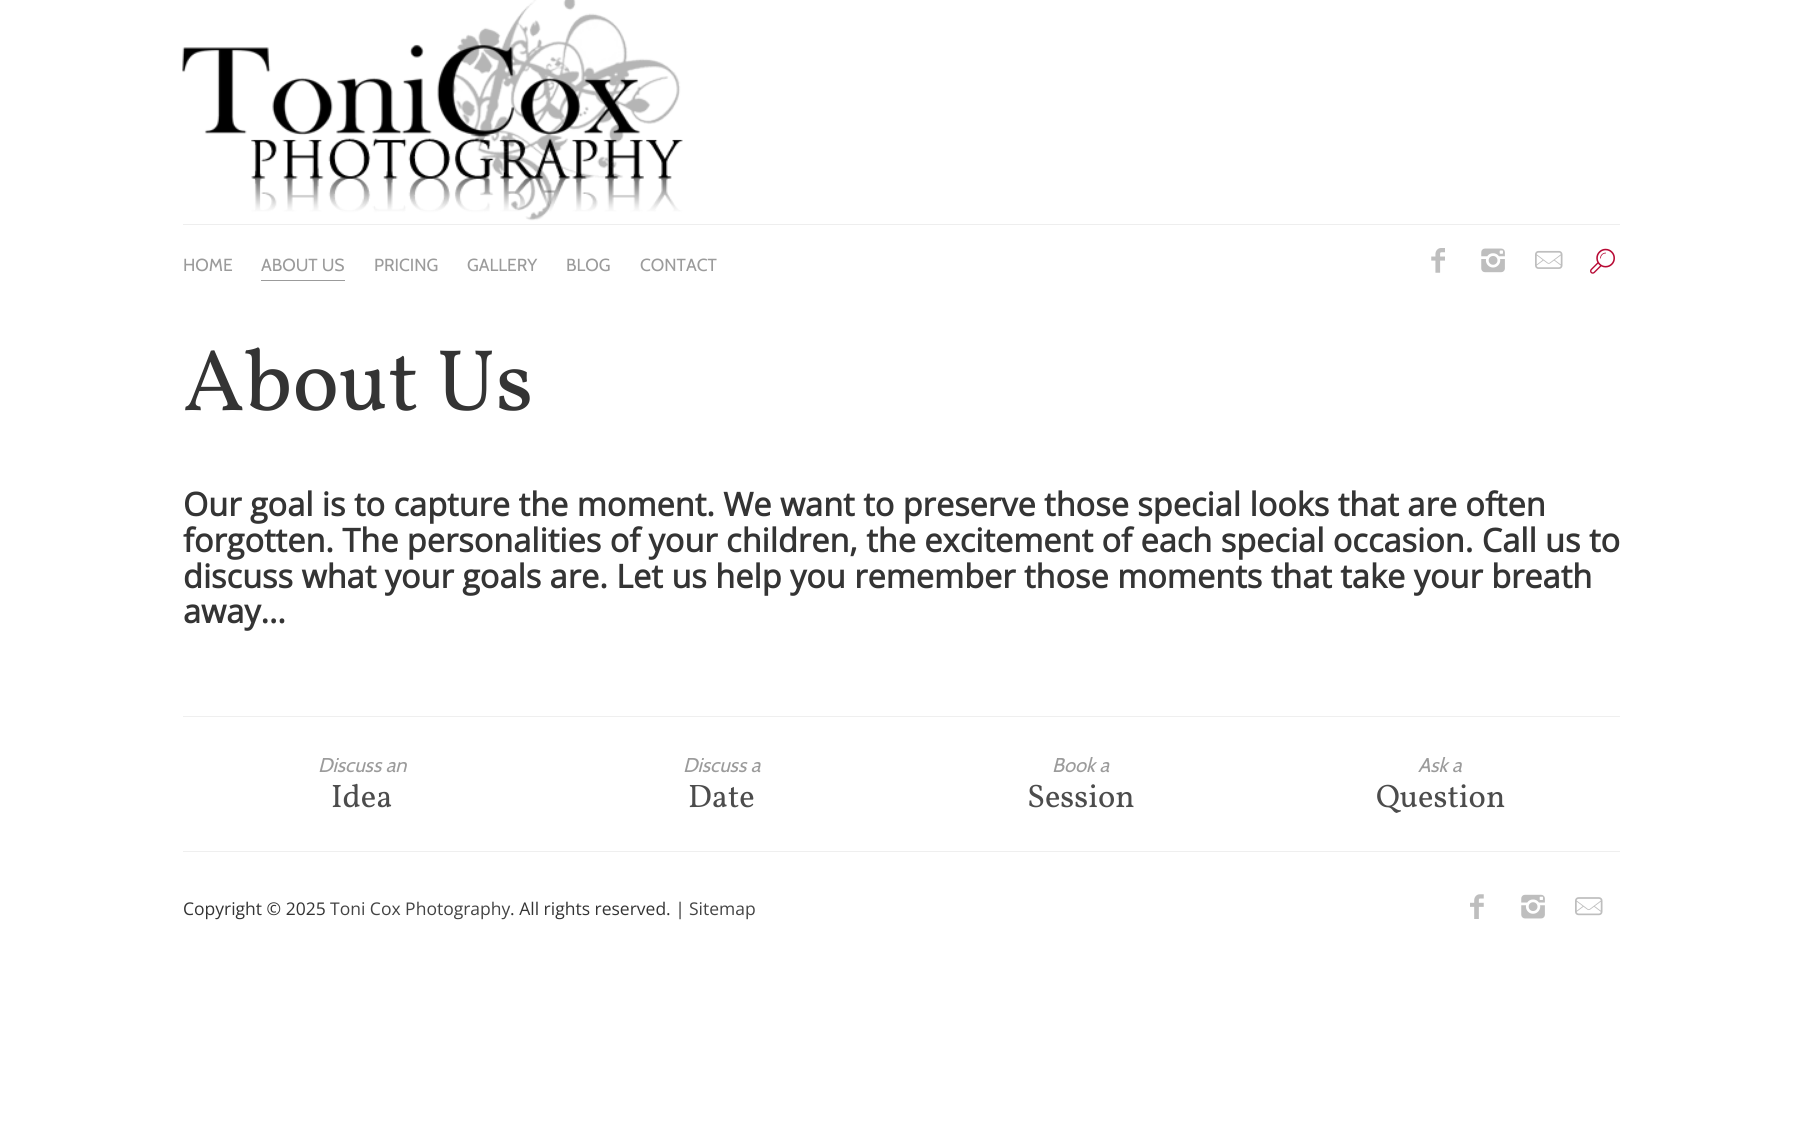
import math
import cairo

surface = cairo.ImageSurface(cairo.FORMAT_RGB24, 1802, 1142)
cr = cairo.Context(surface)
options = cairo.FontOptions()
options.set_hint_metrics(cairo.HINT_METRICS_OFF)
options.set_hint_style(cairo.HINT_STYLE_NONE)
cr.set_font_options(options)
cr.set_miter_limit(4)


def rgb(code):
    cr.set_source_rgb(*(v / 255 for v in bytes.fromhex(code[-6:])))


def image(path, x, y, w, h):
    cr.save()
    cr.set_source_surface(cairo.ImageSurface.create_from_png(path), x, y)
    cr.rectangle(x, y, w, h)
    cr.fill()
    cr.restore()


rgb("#ffffff")
cr.paint()
image("img/1.png", 182, 0, 501, 221)
rgb("#eeeeee")
cr.rectangle(183, 224, 1437, 1)
cr.fill()
rgb("#9b9b9b")
cr.rectangle(261, 280, 84, 1)
cr.fill()
image("img/2.png", 1431, 248, 14, 25)
image("img/3.png", 1481, 248, 24, 25)
image("img/4.png", 1535, 250, 28, 19)
image("img/5.png", 1590, 248, 25, 26)
rgb("#efefef")
cr.rectangle(183, 716, 1437, 1)
cr.fill()
cr.rectangle(183, 851, 1437, 1)
cr.fill()
image("img/6.png", 1470, 894, 14, 25)
image("img/7.png", 1521, 894, 24, 25)
image("img/8.png", 1575, 897, 28, 19)
cr.select_font_face("Cabin")
cr.set_font_size(17.5)
rgb("#9b9b9b")
for x, y, s in [
    (183, 271, "HOME"),
    (261, 271, "ABOUT US"),
    (374, 271, "PRICING"),
    (467, 271, "GALLERY"),
    (566, 271, "BLOG"),
    (640, 271, "CONTACT"),
]:
    cr.move_to(x, y)
    cr.show_text(s)
cr.select_font_face("Vollkorn")
cr.set_font_size(87.5)
rgb("#343434")
cr.move_to(183, 410)
cr.show_text("About Us")
cr.select_font_face("Open Sans", cairo.FONT_SLANT_NORMAL, cairo.FONT_WEIGHT_BOLD)
cr.set_font_size(32.5)
for x, y, s in [
    (183, 516, "Our goal is to capture the moment. We want to preserve those special looks that are often"),
    (183, 552, "forgotten. The personalities of your children, the excitement of each special occasion. Call us to"),
    (183, 588, "discuss what your goals are. Let us help you remember those moments that take your breath"),
    (183, 623, "away…"),
]:
    cr.move_to(x, y)
    cr.show_text(s)
cr.select_font_face("Cabin", cairo.FONT_SLANT_ITALIC)
cr.set_font_size(20)
rgb("#9b9b9b")
cr.move_to(318, 772)
cr.show_text("Discuss an")
cr.select_font_face("Vollkorn")
cr.set_font_size(32.5)
rgb("#4c4c4c")
cr.move_to(331, 807)
cr.show_text("Idea")
cr.select_font_face("Cabin", cairo.FONT_SLANT_ITALIC)
cr.set_font_size(20)
rgb("#9b9b9b")
cr.move_to(683, 772)
cr.show_text("Discuss a")
cr.select_font_face("Vollkorn")
cr.set_font_size(32.5)
rgb("#4c4c4c")
cr.move_to(688, 807)
cr.show_text("Date")
cr.select_font_face("Cabin", cairo.FONT_SLANT_ITALIC)
cr.set_font_size(20)
rgb("#9b9b9b")
cr.move_to(1052, 772)
cr.show_text("Book a")
cr.select_font_face("Vollkorn")
cr.set_font_size(32.5)
rgb("#4c4c4c")
cr.move_to(1027, 807)
cr.show_text("Session")
cr.select_font_face("Cabin", cairo.FONT_SLANT_ITALIC)
cr.set_font_size(20)
rgb("#9b9b9b")
cr.move_to(1418, 772)
cr.show_text("Ask a")
cr.select_font_face("Vollkorn")
cr.set_font_size(32.5)
rgb("#4c4c4c")
cr.move_to(1376, 807)
cr.show_text("Question")
cr.select_font_face("Open Sans")
cr.set_font_size(17.5)
rgb("#343434")
cr.move_to(183, 915)
cr.show_text("Copyright © 2025")
rgb("#444444")
cr.move_to(330, 915)
cr.show_text("Toni Cox Photography")
rgb("#343434")
cr.move_to(510, 915)
cr.show_text(". All rights reserved. |")
rgb("#444444")
cr.move_to(689, 915)
cr.show_text("Sitemap")
surface.write_to_png("page.png")
